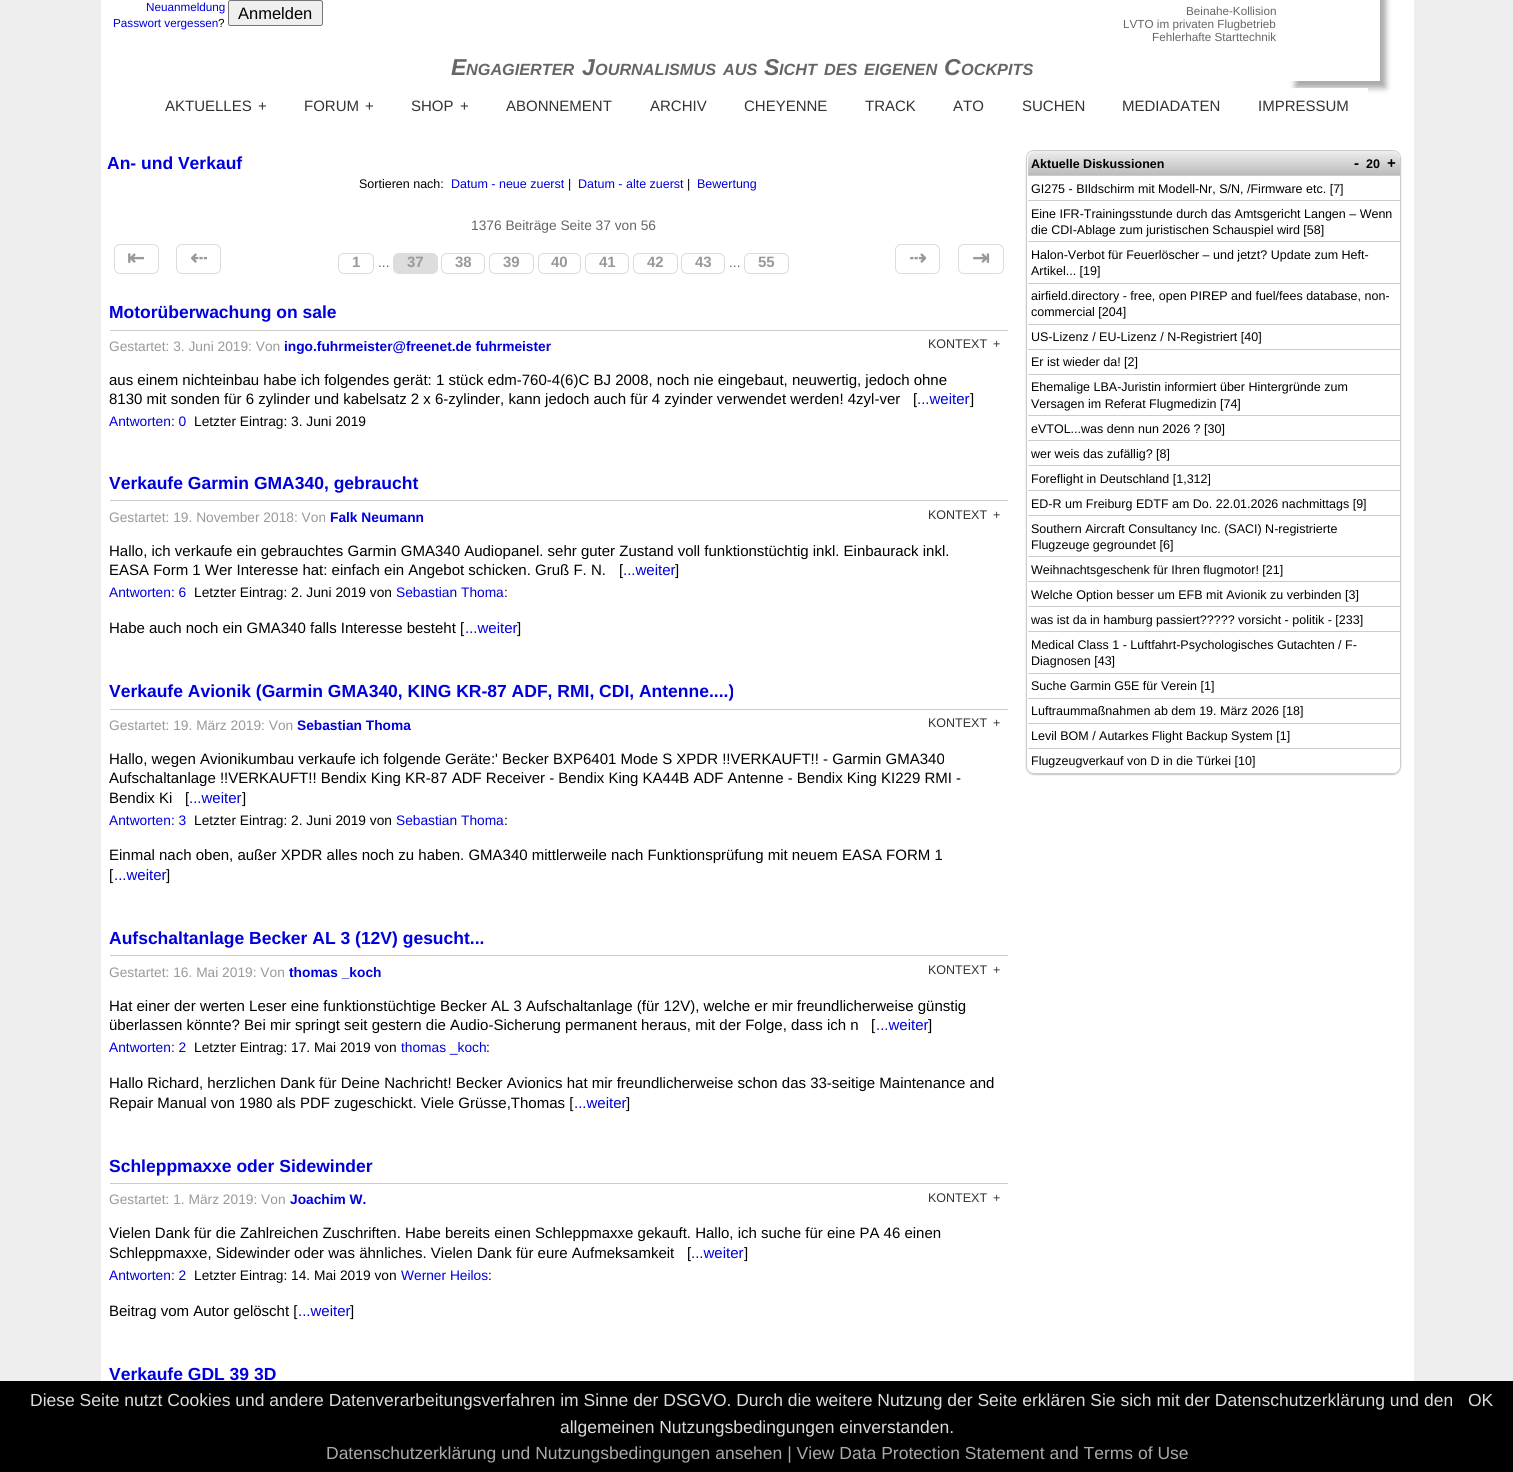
import math
import cairo

surface = cairo.ImageSurface(cairo.FORMAT_RGB24, 1513, 1472)
cr = cairo.Context(surface)
options = cairo.FontOptions()
options.set_hint_metrics(cairo.HINT_METRICS_OFF)
options.set_hint_style(cairo.HINT_STYLE_NONE)
cr.set_font_options(options)
cr.set_miter_limit(4)


def rgb(code):
    cr.set_source_rgb(*(v / 255 for v in bytes.fromhex(code[-6:])))


def rrect(x, y, w, h, r):
    cr.new_sub_path()
    for i, (u, v) in enumerate([(x + w - r, y + h - r), (x + r, y + h - r), (x + r, y + r), (x + w - r, y + r)]):
        cr.arc(u, v, r, i * math.pi / 2, (i + 1) * math.pi / 2)
    cr.close_path()


def soft_shadow(x, y, w, h, r, blur, alpha):
    cr.push_group_with_content(cairo.CONTENT_ALPHA)
    cr.set_operator(cairo.OPERATOR_SOURCE)
    for i in range(15, -16, -2):
        e = blur * i / 6
        if min(w, h) + 2 * e > 0:
            cr.set_source_rgba(0, 0, 0, alpha * math.erfc((i - 1) / 8.5) / 2)
            rrect(x - e, y - e, w + 2 * e, h + 2 * e, max(0, min(r + e + blur * .6, min(w, h) / 2 + e)))
            cr.fill()
    cr.mask(cr.pop_group())


rgb("#eeeeee")
cr.paint()
rgb("#ffffff")
cr.rectangle(101, 0, 1313, 1381)
cr.fill()
rgb("#efefef")
rrect(228.5, 0.5, 94, 25, 2)
cr.fill_preserve()
rgb("#767676")
cr.set_line_width(1)
cr.stroke()
cr.save()
cr.set_fill_rule(cairo.FILL_RULE_EVEN_ODD)
cr.new_path()
cr.move_to(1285, 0)
cr.line_to(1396, 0)
cr.line_to(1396, 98)
cr.line_to(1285, 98)
cr.close_path()
cr.move_to(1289, -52)
cr.line_to(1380, -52)
cr.line_to(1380, 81)
cr.line_to(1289, 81)
cr.close_path()
cr.clip()
rgb("#aaaaaa")
soft_shadow(1295, -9, 91, 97, 0, 3, 1)
cr.restore()
rgb("#ffffff")
cr.rectangle(1291, 88, 77, 6)
cr.fill()
rrect(114.5, 244.5, 44, 29, 5.5)
rgb("#dcdcdc")
cr.stroke()
rrect(176.5, 244.5, 44, 29, 5.5)
cr.stroke()
rrect(338.5, 253.5, 35, 20, 5.5)
cr.stroke()
rgb("#dddddd")
rrect(393.5, 253.5, 44, 20, 5.5)
cr.fill_preserve()
rgb("#dcdcdc")
cr.stroke()
rrect(441.5, 253.5, 43, 20, 5.5)
cr.stroke()
rrect(489.5, 253.5, 44, 20, 5.5)
cr.stroke()
rrect(538.5, 253.5, 42, 20, 5.5)
cr.stroke()
rrect(585.5, 253.5, 43, 20, 5.5)
cr.stroke()
rrect(633.5, 253.5, 44, 20, 5.5)
cr.stroke()
rrect(681.5, 253.5, 43, 20, 5.5)
cr.stroke()
rrect(744.5, 253.5, 44, 20, 5.5)
cr.stroke()
rrect(895.5, 244.5, 44, 29, 5.5)
cr.stroke()
rrect(958.5, 244.5, 45, 29, 5.5)
cr.stroke()
for x, y, w, h, color in [
    (110, 330, 898, 1, "#cccccc"),
    (110, 500, 898, 1, "#cccccc"),
    (110, 709, 898, 1, "#cccccc"),
    (110, 955, 898, 1, "#cccccc"),
    (110, 1183, 898, 1, "#cccccc"),
]:
    rgb(color)
    cr.rectangle(x, y, w, h)
    cr.fill()
cr.save()
cr.set_fill_rule(cairo.FILL_RULE_EVEN_ODD)
cr.new_path()
cr.move_to(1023, 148)
cr.line_to(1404, 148)
cr.line_to(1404, 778)
cr.line_to(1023, 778)
cr.close_path()
cr.move_to(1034, 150)
cr.line_to(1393, 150)
cr.curve_to(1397.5, 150, 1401, 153.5, 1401, 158)
cr.line_to(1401, 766)
cr.curve_to(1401, 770.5, 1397.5, 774, 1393, 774)
cr.line_to(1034, 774)
cr.curve_to(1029.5, 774, 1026, 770.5, 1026, 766)
cr.line_to(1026, 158)
cr.curve_to(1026, 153.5, 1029.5, 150, 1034, 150)
cr.close_path()
cr.clip()
rgb("#cccccc")
soft_shadow(1026, 151, 375, 624, 8, 0.5, 1)
cr.restore()
rrect(1026.5, 150.5, 374, 623, 7.5)
cr.stroke()
gradient = cairo.LinearGradient(1214, 151, 1214, 175)
gradient.add_color_stop_rgba(0, 0.933, 0.933, 0.933, 1)
gradient.add_color_stop_rgba(1, 0.733, 0.733, 0.733, 1)
cr.set_source(gradient)
cr.new_path()
cr.move_to(1036, 151)
cr.line_to(1392, 151)
cr.curve_to(1396.5, 151, 1400, 154.5, 1400, 159)
cr.line_to(1400, 175)
cr.line_to(1028, 175)
cr.line_to(1028, 159)
cr.curve_to(1028, 154.5, 1031.5, 151, 1036, 151)
cr.close_path()
cr.fill()
rgb("#eeeeee")
cr.new_path()
cr.move_to(1035, 152)
cr.line_to(1392, 152)
cr.curve_to(1397, 152, 1400, 156, 1400, 160)
cr.curve_to(1400, 155, 1397, 151, 1392, 151)
cr.line_to(1036, 151)
cr.curve_to(1031, 151, 1028, 155, 1028, 160)
cr.curve_to(1028, 156, 1031, 152, 1035, 152)
cr.close_path()
cr.fill()
for x, y, w, h, color in [
    (1028, 175, 372, 1, "#cccccc"),
    (1028, 200, 372, 1, "#cccccc"),
    (1028, 241, 372, 1, "#cccccc"),
    (1028, 283, 372, 1, "#cccccc"),
    (1028, 324, 372, 1, "#cccccc"),
    (1028, 349, 372, 1, "#cccccc"),
    (1028, 374, 372, 1, "#cccccc"),
    (1028, 415, 372, 1, "#cccccc"),
    (1028, 440, 372, 1, "#cccccc"),
    (1028, 465, 372, 1, "#cccccc"),
    (1028, 490, 372, 1, "#cccccc"),
    (1028, 515, 372, 1, "#cccccc"),
    (1028, 556, 372, 1, "#cccccc"),
    (1028, 581, 372, 1, "#cccccc"),
    (1028, 606, 372, 1, "#cccccc"),
    (1028, 631, 372, 1, "#cccccc"),
    (1028, 673, 372, 1, "#cccccc"),
    (1028, 698, 372, 1, "#cccccc"),
    (1028, 723, 372, 1, "#cccccc"),
    (1028, 748, 372, 1, "#cccccc"),
    (0, 1381, 1513, 91, "#000000"),
]:
    rgb(color)
    cr.rectangle(x, y, w, h)
    cr.fill()
cr.select_font_face("Liberation Sans")
cr.set_font_size(11.7)
rgb("#0000dd")
cr.move_to(146, 11)
cr.show_text("Neuanmeldung")
cr.move_to(113, 27)
cr.show_text("Passwort vergessen")
rgb("#000000")
cr.move_to(218, 27)
cr.show_text("?")
cr.set_font_size(16.5)
cr.move_to(238, 19)
cr.show_text("Anmelden")
cr.set_font_size(11.7)
rgb("#666666")
for x, y, s in [
    (1186, 15, "Beinahe-Kollision"),
    (1123, 28, "LVTO im privaten Flugbetrieb"),
    (1152, 41, "Fehlerhafte Starttechnik"),
]:
    cr.move_to(x, y)
    cr.show_text(s)
cr.select_font_face("Liberation Sans", cairo.FONT_SLANT_ITALIC, cairo.FONT_WEIGHT_BOLD)
cr.set_font_size(23)
cr.move_to(451, 75)
cr.show_text("E")
cr.set_font_size(16.25)
cr.move_to(466, 75)
cr.show_text("NGAGIERTER")
cr.set_font_size(23)
cr.move_to(582, 75)
cr.show_text("J")
cr.set_font_size(16.25)
cr.move_to(595, 75)
cr.show_text("OURNALISMUS")
cr.move_to(723, 75)
cr.show_text("AUS")
cr.set_font_size(23)
cr.move_to(764, 75)
cr.show_text("S")
cr.set_font_size(16.25)
for x, y, s in [
    (779, 75, "ICHT"),
    (824, 75, "DES"),
    (864, 75, "EIGENEN"),
]:
    cr.move_to(x, y)
    cr.show_text(s)
cr.set_font_size(23)
cr.move_to(944, 75)
cr.show_text("C")
cr.set_font_size(16.25)
cr.move_to(961, 75)
cr.show_text("OCKPITS")
cr.select_font_face("Liberation Sans")
cr.set_font_size(15)
rgb("#333333")
for x, y, s in [
    (165, 111, "AKTUELLES"),
    (258, 111, "+"),
    (304, 111, "FORUM"),
    (365, 111, "+"),
    (411, 111, "SHOP"),
    (460, 111, "+"),
    (506, 111, "ABONNEMENT"),
    (650, 111, "ARCHIV"),
    (744, 111, "CHEYENNE"),
    (865, 111, "TRACK"),
    (953, 111, "ATO"),
    (1022, 111, "SUCHEN"),
    (1122, 111, "MEDIADATEN"),
    (1258, 111, "IMPRESSUM"),
]:
    cr.move_to(x, y)
    cr.show_text(s)
cr.select_font_face("Liberation Sans", cairo.FONT_SLANT_NORMAL, cairo.FONT_WEIGHT_BOLD)
cr.set_font_size(17.5)
rgb("#0000dd")
cr.move_to(107, 169)
cr.show_text("An- und Verkauf")
cr.select_font_face("Liberation Sans")
cr.set_font_size(12.5)
rgb("#000000")
cr.move_to(359, 188)
cr.show_text("Sortieren nach:")
rgb("#0000dd")
cr.move_to(451, 188)
cr.show_text("Datum - neue zuerst")
rgb("#000000")
cr.move_to(568, 188)
cr.show_text("|")
rgb("#0000dd")
cr.move_to(578, 188)
cr.show_text("Datum - alte zuerst")
rgb("#000000")
cr.move_to(687, 188)
cr.show_text("|")
rgb("#0000dd")
cr.move_to(697, 188)
cr.show_text("Bewertung")
cr.select_font_face("DejaVu Sans", cairo.FONT_SLANT_NORMAL, cairo.FONT_WEIGHT_BOLD)
cr.set_font_size(21)
rgb("#999999")
cr.move_to(127, 265)
cr.show_text("⇤")
cr.move_to(190, 265)
cr.show_text("⇠")
cr.select_font_face("Liberation Sans")
cr.set_font_size(13.75)
rgb("#666666")
cr.move_to(471, 230)
cr.show_text("1376 Beiträge Seite 37 von 56")
cr.select_font_face("Liberation Sans", cairo.FONT_SLANT_NORMAL, cairo.FONT_WEIGHT_BOLD)
cr.set_font_size(15)
rgb("#999999")
cr.move_to(352, 267)
cr.show_text("1")
cr.select_font_face("Liberation Sans")
cr.set_font_size(13.75)
rgb("#666666")
cr.move_to(378, 267)
cr.show_text("...")
cr.select_font_face("Liberation Sans", cairo.FONT_SLANT_NORMAL, cairo.FONT_WEIGHT_BOLD)
cr.set_font_size(15)
rgb("#999999")
for x, y, s in [
    (407, 267, "37"),
    (455, 267, "38"),
    (503, 267, "39"),
    (551, 267, "40"),
    (599, 267, "41"),
    (647, 267, "42"),
    (695, 267, "43"),
]:
    cr.move_to(x, y)
    cr.show_text(s)
cr.select_font_face("Liberation Sans")
cr.set_font_size(13.75)
rgb("#666666")
cr.move_to(729, 267)
cr.show_text("...")
cr.select_font_face("Liberation Sans", cairo.FONT_SLANT_NORMAL, cairo.FONT_WEIGHT_BOLD)
cr.set_font_size(15)
rgb("#999999")
cr.move_to(758, 267)
cr.show_text("55")
cr.select_font_face("DejaVu Sans", cairo.FONT_SLANT_NORMAL, cairo.FONT_WEIGHT_BOLD)
cr.set_font_size(21)
cr.move_to(909, 265)
cr.show_text("⇢")
cr.move_to(972, 265)
cr.show_text("⇥")
cr.select_font_face("Liberation Sans", cairo.FONT_SLANT_NORMAL, cairo.FONT_WEIGHT_BOLD)
cr.set_font_size(17.5)
rgb("#0000dd")
cr.move_to(109, 318)
cr.show_text("Motorüberwachung on sale")
cr.select_font_face("Liberation Sans")
cr.set_font_size(13.75)
rgb("#999999")
cr.move_to(109, 351)
cr.show_text("Gestartet: 3. Juni 2019: Von")
cr.select_font_face("Liberation Sans", cairo.FONT_SLANT_NORMAL, cairo.FONT_WEIGHT_BOLD)
rgb("#0000dd")
cr.move_to(284, 351)
cr.show_text("ingo.fuhrmeister@freenet.de fuhrmeister")
cr.select_font_face("Liberation Sans")
cr.set_font_size(12.5)
rgb("#333333")
cr.move_to(928, 348)
cr.show_text("KONTEXT")
cr.move_to(993, 348)
cr.show_text("+")
cr.set_font_size(15)
rgb("#000000")
for x, y, s in [
    (109, 385, "aus einem nichteinbau habe ich folgendes gerät: 1 stück edm-760-4(6)C BJ 2008, noch nie eingebaut, neuwertig, jedoch ohne"),
    (109, 404, "8130 mit sonden für 6 zylinder und kabelsatz 2 x 6-zylinder, kann jedoch auch für 4 zyinder verwendet werden! 4zyl-ver"),
    (913, 404, "["),
]:
    cr.move_to(x, y)
    cr.show_text(s)
rgb("#0000dd")
cr.move_to(917, 404)
cr.show_text("...weiter")
rgb("#000000")
cr.move_to(970, 404)
cr.show_text("]")
cr.set_font_size(13.75)
rgb("#0000dd")
cr.move_to(109, 426)
cr.show_text("Antworten: 0")
rgb("#000000")
cr.move_to(194, 426)
cr.show_text("Letzter Eintrag: 3. Juni 2019")
cr.select_font_face("Liberation Sans", cairo.FONT_SLANT_NORMAL, cairo.FONT_WEIGHT_BOLD)
cr.set_font_size(17.5)
rgb("#0000dd")
cr.move_to(109, 489)
cr.show_text("Verkaufe Garmin GMA340, gebraucht")
cr.select_font_face("Liberation Sans")
cr.set_font_size(13.75)
rgb("#999999")
cr.move_to(109, 522)
cr.show_text("Gestartet: 19. November 2018: Von")
cr.select_font_face("Liberation Sans", cairo.FONT_SLANT_NORMAL, cairo.FONT_WEIGHT_BOLD)
rgb("#0000dd")
cr.move_to(330, 522)
cr.show_text("Falk Neumann")
cr.select_font_face("Liberation Sans")
cr.set_font_size(12.5)
rgb("#333333")
cr.move_to(928, 519)
cr.show_text("KONTEXT")
cr.move_to(993, 519)
cr.show_text("+")
cr.set_font_size(15)
rgb("#000000")
for x, y, s in [
    (109, 556, "Hallo, ich verkaufe ein gebrauchtes Garmin GMA340 Audiopanel. sehr guter Zustand voll funktionstüchtig inkl. Einbaurack inkl."),
    (109, 575, "EASA Form 1 Wer Interesse hat: einfach ein Angebot schicken. Gruß F. N."),
    (619, 575, "["),
]:
    cr.move_to(x, y)
    cr.show_text(s)
rgb("#0000dd")
cr.move_to(623, 575)
cr.show_text("...weiter")
rgb("#000000")
cr.move_to(675, 575)
cr.show_text("]")
cr.set_font_size(13.75)
rgb("#0000dd")
cr.move_to(109, 597)
cr.show_text("Antworten: 6")
rgb("#000000")
cr.move_to(194, 597)
cr.show_text("Letzter Eintrag: 2. Juni 2019 von")
rgb("#0000dd")
cr.move_to(396, 597)
cr.show_text("Sebastian Thoma")
rgb("#000000")
cr.move_to(504, 597)
cr.show_text(":")
cr.set_font_size(15)
cr.move_to(109, 633)
cr.show_text("Habe auch noch ein GMA340 falls Interesse besteht [")
rgb("#0000dd")
cr.move_to(465, 633)
cr.show_text("...weiter")
rgb("#000000")
cr.move_to(517, 633)
cr.show_text("]")
cr.select_font_face("Liberation Sans", cairo.FONT_SLANT_NORMAL, cairo.FONT_WEIGHT_BOLD)
cr.set_font_size(17.5)
rgb("#0000dd")
cr.move_to(109, 697)
cr.show_text("Verkaufe Avionik (Garmin GMA340, KING KR-87 ADF, RMI, CDI, Antenne....)")
cr.select_font_face("Liberation Sans")
cr.set_font_size(13.75)
rgb("#999999")
cr.move_to(109, 730)
cr.show_text("Gestartet: 19. März 2019: Von")
cr.select_font_face("Liberation Sans", cairo.FONT_SLANT_NORMAL, cairo.FONT_WEIGHT_BOLD)
rgb("#0000dd")
cr.move_to(297, 730)
cr.show_text("Sebastian Thoma")
cr.select_font_face("Liberation Sans")
cr.set_font_size(12.5)
rgb("#333333")
cr.move_to(928, 727)
cr.show_text("KONTEXT")
cr.move_to(993, 727)
cr.show_text("+")
cr.set_font_size(15)
rgb("#000000")
for x, y, s in [
    (109, 764, "Hallo, wegen Avionikumbau verkaufe ich folgende Geräte:' Becker BXP6401 Mode S XPDR !!VERKAUFT!! - Garmin GMA340"),
    (109, 783, "Aufschaltanlage !!VERKAUFT!! Bendix King KR-87 ADF Receiver - Bendix King KA44B ADF Antenne - Bendix King KI229 RMI -"),
    (109, 803, "Bendix Ki"),
    (185, 803, "["),
]:
    cr.move_to(x, y)
    cr.show_text(s)
rgb("#0000dd")
cr.move_to(189, 803)
cr.show_text("...weiter")
rgb("#000000")
cr.move_to(242, 803)
cr.show_text("]")
cr.set_font_size(13.75)
rgb("#0000dd")
cr.move_to(109, 825)
cr.show_text("Antworten: 3")
rgb("#000000")
cr.move_to(194, 825)
cr.show_text("Letzter Eintrag: 2. Juni 2019 von")
rgb("#0000dd")
cr.move_to(396, 825)
cr.show_text("Sebastian Thoma")
rgb("#000000")
cr.move_to(504, 825)
cr.show_text(":")
cr.set_font_size(15)
cr.move_to(109, 860)
cr.show_text("Einmal nach oben, außer XPDR alles noch zu haben. GMA340 mittlerweile nach Funktionsprüfung mit neuem EASA FORM 1")
cr.move_to(109, 880)
cr.show_text("[")
rgb("#0000dd")
cr.move_to(114, 880)
cr.show_text("...weiter")
rgb("#000000")
cr.move_to(166, 880)
cr.show_text("]")
cr.select_font_face("Liberation Sans", cairo.FONT_SLANT_NORMAL, cairo.FONT_WEIGHT_BOLD)
cr.set_font_size(17.5)
rgb("#0000dd")
cr.move_to(109, 944)
cr.show_text("Aufschaltanlage Becker AL 3 (12V) gesucht...")
cr.select_font_face("Liberation Sans")
cr.set_font_size(13.75)
rgb("#999999")
cr.move_to(109, 977)
cr.show_text("Gestartet: 16. Mai 2019: Von")
cr.select_font_face("Liberation Sans", cairo.FONT_SLANT_NORMAL, cairo.FONT_WEIGHT_BOLD)
rgb("#0000dd")
cr.move_to(289, 977)
cr.show_text("thomas _koch")
cr.select_font_face("Liberation Sans")
cr.set_font_size(12.5)
rgb("#333333")
cr.move_to(928, 974)
cr.show_text("KONTEXT")
cr.move_to(993, 974)
cr.show_text("+")
cr.set_font_size(15)
rgb("#000000")
for x, y, s in [
    (109, 1011, "Hat einer der werten Leser eine funktionstüchtige Becker AL 3 Aufschaltanlage (für 12V), welche er mir freundlicherweise günstig"),
    (109, 1030, "überlassen könnte? Bei mir springt seit gestern die Audio-Sicherung permanent heraus, mit der Folge, dass ich n"),
    (871, 1030, "["),
]:
    cr.move_to(x, y)
    cr.show_text(s)
rgb("#0000dd")
cr.move_to(876, 1030)
cr.show_text("...weiter")
rgb("#000000")
cr.move_to(928, 1030)
cr.show_text("]")
cr.set_font_size(13.75)
rgb("#0000dd")
cr.move_to(109, 1052)
cr.show_text("Antworten: 2")
rgb("#000000")
cr.move_to(194, 1052)
cr.show_text("Letzter Eintrag: 17. Mai 2019 von")
rgb("#0000dd")
cr.move_to(401, 1052)
cr.show_text("thomas _koch")
rgb("#000000")
cr.move_to(486, 1052)
cr.show_text(":")
cr.set_font_size(15)
cr.move_to(109, 1088)
cr.show_text("Hallo Richard, herzlichen Dank für Deine Nachricht! Becker Avionics hat mir freundlicherweise schon das 33-seitige Maintenance and")
cr.move_to(109, 1108)
cr.show_text("Repair Manual von 1980 als PDF zugeschickt. Viele Grüsse,Thomas [")
rgb("#0000dd")
cr.move_to(574, 1108)
cr.show_text("...weiter")
rgb("#000000")
cr.move_to(626, 1108)
cr.show_text("]")
cr.select_font_face("Liberation Sans", cairo.FONT_SLANT_NORMAL, cairo.FONT_WEIGHT_BOLD)
cr.set_font_size(17.5)
rgb("#0000dd")
cr.move_to(109, 1172)
cr.show_text("Schleppmaxxe oder Sidewinder")
cr.select_font_face("Liberation Sans")
cr.set_font_size(13.75)
rgb("#999999")
cr.move_to(109, 1204)
cr.show_text("Gestartet: 1. März 2019: Von")
cr.select_font_face("Liberation Sans", cairo.FONT_SLANT_NORMAL, cairo.FONT_WEIGHT_BOLD)
rgb("#0000dd")
cr.move_to(290, 1204)
cr.show_text("Joachim W.")
cr.select_font_face("Liberation Sans")
cr.set_font_size(12.5)
rgb("#333333")
cr.move_to(928, 1202)
cr.show_text("KONTEXT")
cr.move_to(993, 1202)
cr.show_text("+")
cr.set_font_size(15)
rgb("#000000")
for x, y, s in [
    (109, 1238, "Vielen Dank für die Zahlreichen Zuschriften. Habe bereits einen Schleppmaxxe gekauft. Hallo, ich suche für eine PA 46 einen"),
    (109, 1258, "Schleppmaxxe, Sidewinder oder was ähnliches. Vielen Dank für eure Aufmeksamkeit"),
    (687, 1258, "["),
]:
    cr.move_to(x, y)
    cr.show_text(s)
rgb("#0000dd")
cr.move_to(691, 1258)
cr.show_text("...weiter")
rgb("#000000")
cr.move_to(744, 1258)
cr.show_text("]")
cr.set_font_size(13.75)
rgb("#0000dd")
cr.move_to(109, 1280)
cr.show_text("Antworten: 2")
rgb("#000000")
cr.move_to(194, 1280)
cr.show_text("Letzter Eintrag: 14. Mai 2019 von")
rgb("#0000dd")
cr.move_to(401, 1280)
cr.show_text("Werner Heilos")
rgb("#000000")
cr.move_to(488, 1280)
cr.show_text(":")
cr.set_font_size(15)
cr.move_to(109, 1316)
cr.show_text("Beitrag vom Autor gelöscht [")
rgb("#0000dd")
cr.move_to(298, 1316)
cr.show_text("...weiter")
rgb("#000000")
cr.move_to(350, 1316)
cr.show_text("]")
cr.select_font_face("Liberation Sans", cairo.FONT_SLANT_NORMAL, cairo.FONT_WEIGHT_BOLD)
cr.set_font_size(17.5)
rgb("#0000dd")
cr.move_to(109, 1380)
cr.show_text("Verkaufe GDL 39 3D")
cr.set_font_size(12.5)
rgb("#000000")
cr.move_to(1031, 168)
cr.show_text("Aktuelle Diskussionen")
cr.set_font_size(15)
cr.move_to(1354, 168)
cr.show_text("-")
cr.set_font_size(12.5)
cr.move_to(1366, 168)
cr.show_text("20")
cr.set_font_size(15)
cr.move_to(1387, 168)
cr.show_text("+")
cr.select_font_face("Liberation Sans")
cr.set_font_size(12.5)
for x, y, s in [
    (1031, 193, "GI275 - BIldschirm mit Modell-Nr, S/N, /Firmware etc. [7]"),
    (1031, 218, "Eine IFR-Trainingsstunde durch das Amtsgericht Langen – Wenn"),
    (1031, 234, "die CDI-Ablage zum juristischen Schauspiel wird [58]"),
    (1031, 259, "Halon-Verbot für Feuerlöscher – und jetzt? Update zum Heft-"),
    (1031, 275, "Artikel... [19]"),
    (1031, 300, "airfield.directory - free, open PIREP and fuel/fees database, non-"),
    (1031, 316, "commercial [204]"),
    (1031, 341, "US-Lizenz / EU-Lizenz / N-Registriert [40]"),
    (1031, 366, "Er ist wieder da! [2]"),
    (1031, 391, "Ehemalige LBA-Juristin informiert über Hintergründe zum"),
    (1031, 408, "Versagen im Referat Flugmedizin [74]"),
    (1031, 433, "eVTOL...was denn nun 2026 ? [30]"),
    (1031, 458, "wer weis das zufällig? [8]"),
    (1031, 483, "Foreflight in Deutschland [1,312]"),
    (1031, 508, "ED-R um Freiburg EDTF am Do. 22.01.2026 nachmittags [9]"),
    (1031, 533, "Southern Aircraft Consultancy Inc. (SACI) N-registrierte"),
    (1031, 549, "Flugzeuge gegroundet [6]"),
    (1031, 574, "Weihnachtsgeschenk für Ihren flugmotor! [21]"),
    (1031, 599, "Welche Option besser um EFB mit Avionik zu verbinden [3]"),
    (1031, 624, "was ist da in hamburg passiert????? vorsicht - politik - [233]"),
    (1031, 649, "Medical Class 1 - Luftfahrt-Psychologisches Gutachten / F-"),
    (1031, 665, "Diagnosen [43]"),
    (1031, 690, "Suche Garmin G5E für Verein [1]"),
    (1031, 715, "Luftraummaßnahmen ab dem 19. März 2026 [18]"),
    (1031, 740, "Levil BOM / Autarkes Flight Backup System [1]"),
    (1031, 765, "Flugzeugverkauf von D in die Türkei [10]"),
]:
    cr.move_to(x, y)
    cr.show_text(s)
cr.set_font_size(17.5)
rgb("#dddddd")
for x, y, s in [
    (30, 1406, "Diese Seite nutzt Cookies und andere Datenverarbeitungsverfahren im Sinne der DSGVO. Durch die weitere Nutzung der Seite erklären Sie sich mit der Datenschutzerklärung und den"),
    (1468, 1406, "OK"),
    (560, 1433, "allgemeinen Nutzungsbedingungen einverstanden."),
]:
    cr.move_to(x, y)
    cr.show_text(s)
rgb("#aaaaaa")
cr.move_to(326, 1459)
cr.show_text("Datenschutzerklärung und Nutzungsbedingungen ansehen | View Data Protection Statement and Terms of Use")
surface.write_to_png("page.png")
